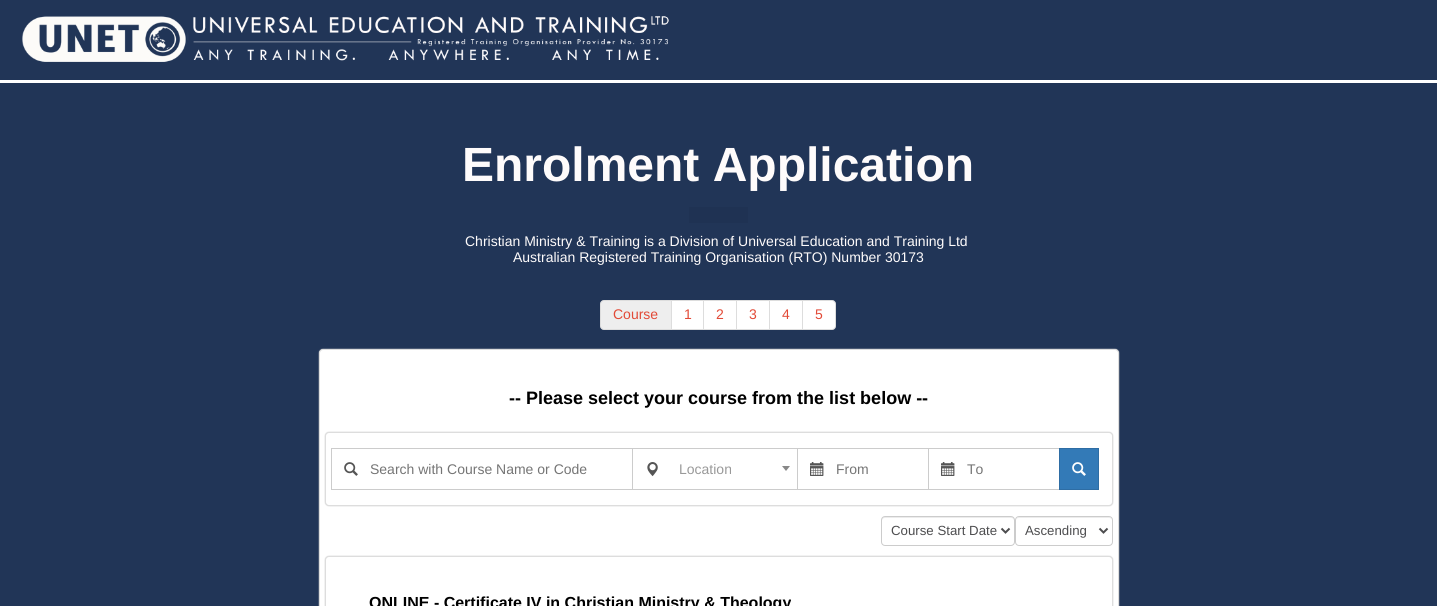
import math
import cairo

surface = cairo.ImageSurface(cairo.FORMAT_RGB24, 1437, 606)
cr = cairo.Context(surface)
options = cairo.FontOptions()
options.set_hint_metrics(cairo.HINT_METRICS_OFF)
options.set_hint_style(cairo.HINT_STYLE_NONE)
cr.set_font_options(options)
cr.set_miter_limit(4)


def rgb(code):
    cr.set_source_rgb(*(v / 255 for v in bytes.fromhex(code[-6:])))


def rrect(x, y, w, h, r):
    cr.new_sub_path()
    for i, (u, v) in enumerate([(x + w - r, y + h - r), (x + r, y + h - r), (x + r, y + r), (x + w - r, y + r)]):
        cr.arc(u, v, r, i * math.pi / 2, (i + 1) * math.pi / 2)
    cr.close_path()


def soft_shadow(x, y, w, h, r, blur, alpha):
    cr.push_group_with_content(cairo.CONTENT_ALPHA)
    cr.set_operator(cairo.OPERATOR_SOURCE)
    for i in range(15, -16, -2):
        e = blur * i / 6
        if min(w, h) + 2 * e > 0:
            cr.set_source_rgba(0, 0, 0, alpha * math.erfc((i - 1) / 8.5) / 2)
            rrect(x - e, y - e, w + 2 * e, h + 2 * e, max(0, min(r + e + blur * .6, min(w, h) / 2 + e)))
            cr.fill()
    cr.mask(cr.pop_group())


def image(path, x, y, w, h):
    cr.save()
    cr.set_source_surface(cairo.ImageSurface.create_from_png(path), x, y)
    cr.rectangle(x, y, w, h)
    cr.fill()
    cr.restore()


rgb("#213557")
cr.paint()
rgb("#ffffff")
cr.rectangle(0, 80, 1437, 3)
cr.fill()
image("img/1.png", 22, 16, 647, 46)
rgb("#1f3253")
cr.rectangle(689, 207, 59, 16)
cr.fill()
rgb("#eeeeee")
cr.new_path()
cr.move_to(604, 300.5)
cr.line_to(671.5, 300.5)
cr.line_to(671.5, 329.5)
cr.line_to(604, 329.5)
cr.curve_to(602, 329.5, 600.5, 328, 600.5, 326)
cr.line_to(600.5, 304)
cr.curve_to(600.5, 302, 602, 300.5, 604, 300.5)
cr.close_path()
cr.fill_preserve()
rgb("#dddddd")
cr.set_line_width(1)
cr.stroke()
rgb("#ffffff")
cr.rectangle(671.5, 300.5, 32, 29)
cr.fill_preserve()
rgb("#dddddd")
cr.stroke()
rgb("#ffffff")
cr.rectangle(703.5, 300.5, 33, 29)
cr.fill_preserve()
rgb("#dddddd")
cr.stroke()
rgb("#ffffff")
cr.rectangle(736.5, 300.5, 33, 29)
cr.fill_preserve()
rgb("#dddddd")
cr.stroke()
rgb("#ffffff")
cr.rectangle(769.5, 300.5, 33, 29)
cr.fill_preserve()
rgb("#dddddd")
cr.stroke()
rgb("#ffffff")
cr.new_path()
cr.move_to(802.5, 300.5)
cr.line_to(832, 300.5)
cr.curve_to(834, 300.5, 835.5, 302, 835.5, 304)
cr.line_to(835.5, 326)
cr.curve_to(835.5, 328, 834, 329.5, 832, 329.5)
cr.line_to(802.5, 329.5)
cr.close_path()
cr.fill_preserve()
rgb("#dddddd")
cr.stroke()
rgb("#cccccc")
soft_shadow(319, 349, 800, 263, 4, 0.5, 1)
rgb("#ffffff")
rrect(319.5, 349.5, 799, 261, 3.5)
cr.fill_preserve()
rgb("#dddddd")
cr.stroke()
rgb("#cccccc")
soft_shadow(325, 432, 788, 74, 4, 0.5, 1)
rgb("#ffffff")
rrect(325.5, 432.5, 787, 73, 3.5)
cr.fill_preserve()
rgb("#dddddd")
cr.stroke()
for x, y, w, h, color in [
    (331, 448, 340, 1, "#cccccc"),
    (331, 489, 340, 1, "#cccccc"),
    (331, 448, 1, 42, "#cccccc"),
]:
    rgb(color)
    cr.rectangle(x, y, w, h)
    cr.fill()
image("img/2.png", 344, 462, 14, 14)
cr.rectangle(632, 448, 1, 42)
cr.fill()
image("img/3.png", 647, 462, 11, 15)
cr.rectangle(671, 448, 388, 1)
cr.fill()
cr.rectangle(671, 489, 388, 1)
cr.fill()
rgb("#888888")
cr.new_path()
cr.move_to(782, 466)
cr.line_to(790, 466)
cr.line_to(786, 471)
cr.close_path()
cr.fill()
rgb("#cccccc")
cr.rectangle(797, 448, 1, 42)
cr.fill()
image("img/4.png", 810, 462, 14, 14)
cr.rectangle(928, 448, 1, 42)
cr.fill()
image("img/4.png", 941, 462, 14, 14)
rgb("#337ab7")
cr.rectangle(1059.5, 448.5, 39, 41)
cr.fill_preserve()
rgb("#2e6da4")
cr.stroke()
image("img/5.png", 1072, 462, 14, 14)
rgb("#ececec")
cr.new_path()
cr.move_to(885, 518)
cr.line_to(1011, 518)
cr.curve_to(1013, 518, 1014, 519, 1014, 521)
cr.curve_to(1014, 519, 1014, 517, 1012, 517)
cr.line_to(884, 517)
cr.curve_to(882, 517, 882, 519, 882, 521)
cr.curve_to(882, 519, 883, 518, 885, 518)
cr.close_path()
cr.fill()
rrect(881.5, 516.5, 133, 29, 3.5)
rgb("#cccccc")
cr.stroke()
cr.new_path()
cr.move_to(1001.5, 528.5)
cr.line_to(1005.5, 532.5)
cr.line_to(1009.5, 528.5)
rgb("#4d4d4f")
cr.set_line_width(2)
cr.stroke()
rgb("#ececec")
cr.new_path()
cr.move_to(1019, 518)
cr.line_to(1109, 518)
cr.curve_to(1111, 518, 1112, 519, 1112, 521)
cr.curve_to(1112, 513, 1097, 517, 1094, 517)
cr.line_to(1034, 517)
cr.curve_to(1031, 517, 1016, 513, 1016, 521)
cr.curve_to(1016, 519, 1017, 518, 1019, 518)
cr.close_path()
cr.fill()
rrect(1015.5, 516.5, 97, 29, 3.5)
rgb("#cccccc")
cr.set_line_width(1)
cr.stroke()
cr.new_path()
cr.move_to(1099.5, 528.5)
cr.line_to(1103.5, 532.5)
cr.line_to(1107.5, 528.5)
rgb("#4d4d4f")
cr.set_line_width(2)
cr.stroke()
rgb("#cccccc")
soft_shadow(325, 556, 788, 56, 4, 0.5, 1)
rgb("#ffffff")
rrect(325.5, 556.5, 787, 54, 3.5)
cr.fill_preserve()
rgb("#dddddd")
cr.set_line_width(1)
cr.stroke()
cr.select_font_face("Liberation Sans", cairo.FONT_SLANT_NORMAL, cairo.FONT_WEIGHT_BOLD)
cr.set_font_size(48)
rgb("#fefbfb")
cr.move_to(462, 181)
cr.show_text("Enrolment Application")
cr.select_font_face("Liberation Sans")
cr.set_font_size(14)
cr.move_to(465, 246)
cr.show_text("Christian Ministry & Training is a Division of Universal Education and Training Ltd")
cr.move_to(513, 262)
cr.show_text("Australian Registered Training Organisation (RTO) Number 30173")
rgb("#e24a37")
for x, y, s in [
    (613, 319, "Course"),
    (684, 319, "1"),
    (716, 319, "2"),
    (749, 319, "3"),
    (782, 319, "4"),
    (815, 319, "5"),
]:
    cr.move_to(x, y)
    cr.show_text(s)
cr.select_font_face("Liberation Sans", cairo.FONT_SLANT_NORMAL, cairo.FONT_WEIGHT_BOLD)
cr.set_font_size(18)
rgb("#000000")
cr.move_to(509, 404)
cr.show_text("-- Please select your course from the list below --")
cr.select_font_face("Liberation Sans")
cr.set_font_size(14)
rgb("#757575")
cr.move_to(370, 474)
cr.show_text("Search with Course Name or Code")
rgb("#999999")
cr.move_to(679, 474)
cr.show_text("Location")
rgb("#757575")
cr.move_to(836, 474)
cr.show_text("From")
cr.move_to(967, 474)
cr.show_text("To")
cr.set_font_size(13.25)
rgb("#4d4d4f")
cr.move_to(891, 535)
cr.show_text("Course Start Date")
cr.move_to(1025, 535)
cr.show_text("Ascending")
cr.select_font_face("Liberation Sans", cairo.FONT_SLANT_NORMAL, cairo.FONT_WEIGHT_BOLD)
cr.set_font_size(16)
rgb("#000000")
cr.move_to(369, 608)
cr.show_text("ONLINE - Certificate IV in Christian Ministry & Theology")
surface.write_to_png("page.png")
